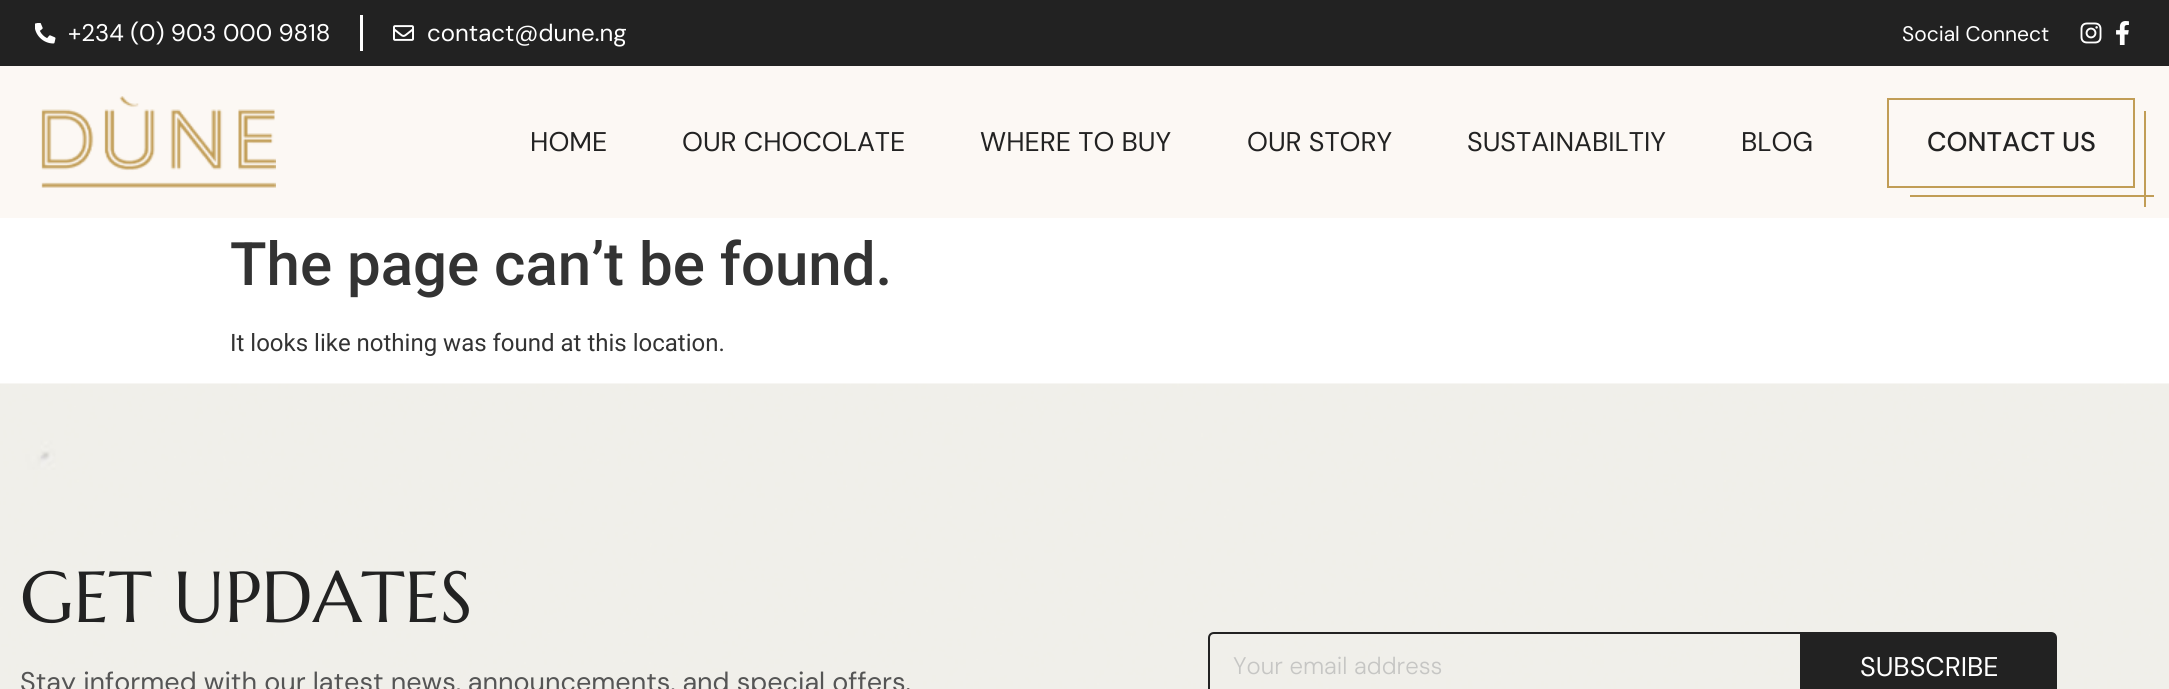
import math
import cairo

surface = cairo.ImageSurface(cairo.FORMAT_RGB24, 2169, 689)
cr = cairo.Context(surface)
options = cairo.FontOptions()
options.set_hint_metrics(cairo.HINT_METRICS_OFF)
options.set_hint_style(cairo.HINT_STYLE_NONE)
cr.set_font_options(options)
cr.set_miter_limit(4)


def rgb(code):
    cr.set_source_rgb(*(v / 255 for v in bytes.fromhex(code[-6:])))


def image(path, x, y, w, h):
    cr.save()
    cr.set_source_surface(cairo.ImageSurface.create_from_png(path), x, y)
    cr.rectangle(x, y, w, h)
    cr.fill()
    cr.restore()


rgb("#ffffff")
cr.paint()
rgb("#222222")
cr.rectangle(0, 0, 2169, 66)
cr.fill()
rgb("#ffffff")
cr.rectangle(360, 15, 3, 36)
cr.fill()
image("img/1.png", 35, 23, 21, 21)
image("img/2.png", 393, 25, 21, 16)
image("img/3.png", 2080, 22, 22, 22)
image("img/4.png", 2116, 21, 13, 24)
rgb("#fcf8f4")
cr.rectangle(0, 66, 2169, 152)
cr.fill()
image("img/5.png", 41, 96, 235, 92)
cr.rectangle(1888, 99, 246, 88)
rgb("#c19d56")
cr.stroke()
cr.rectangle(2144, 111, 2, 96)
cr.fill()
cr.rectangle(1910, 195, 244, 2)
cr.fill()
image("img/6.png", 0, 383, 2169, 306)
cr.new_path()
cr.move_to(1214, 633)
cr.line_to(1801, 633)
cr.line_to(1801, 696)
cr.line_to(1214, 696)
cr.curve_to(1211, 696, 1209, 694, 1209, 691)
cr.line_to(1209, 638)
cr.curve_to(1209, 635, 1211, 633, 1214, 633)
cr.close_path()
rgb("#222222")
cr.stroke()
cr.new_path()
cr.move_to(1802, 632)
cr.line_to(2051, 632)
cr.curve_to(2054.5, 632, 2057, 634.5, 2057, 638)
cr.line_to(2057, 689)
cr.curve_to(2057, 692.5, 2054.5, 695, 2051, 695)
cr.line_to(1802, 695)
cr.close_path()
cr.fill()
cr.select_font_face("DM Sans")
cr.set_font_size(24)
rgb("#ffffff")
cr.move_to(68, 41)
cr.show_text("+234 (0) 903 000 9818")
cr.move_to(427, 41)
cr.show_text("contact@dune.ng")
cr.set_font_size(21)
cr.move_to(1902, 41)
cr.show_text("Social Connect")
cr.set_font_size(27)
rgb("#222222")
for x, y, s in [
    (530, 151, "HOME"),
    (682, 151, "OUR CHOCOLATE"),
    (980, 151, "WHERE TO BUY"),
    (1247, 151, "OUR STORY"),
    (1467, 151, "SUSTAINABILTIY"),
    (1741, 151, "BLOG"),
]:
    cr.move_to(x, y)
    cr.show_text(s)
cr.select_font_face("DM Sans Medium")
cr.move_to(1927, 151)
cr.show_text("CONTACT US")
cr.select_font_face("Roboto Medium")
cr.set_font_size(60)
rgb("#333333")
cr.move_to(230, 285)
cr.show_text("The page can’t be found.")
cr.select_font_face("Roboto")
cr.set_font_size(24)
cr.move_to(230, 351)
cr.show_text("It looks like nothing was found at this location.")
cr.select_font_face("Marcellus")
cr.set_font_size(72)
rgb("#222222")
cr.move_to(20, 622)
cr.show_text("GET UPDATES")
cr.select_font_face("DM Sans")
cr.set_font_size(27)
rgb("#555555")
cr.move_to(20, 691)
cr.show_text("Stay informed with our latest news, announcements, and special offers.")
cr.select_font_face("DM Sans Light")
cr.set_font_size(24)
rgb("#c6c6c4")
cr.move_to(1233, 674)
cr.show_text("Your email address")
cr.select_font_face("DM Sans")
cr.set_font_size(27)
rgb("#ffffff")
cr.move_to(1860, 676)
cr.show_text("SUBSCRIBE")
surface.write_to_png("page.png")
